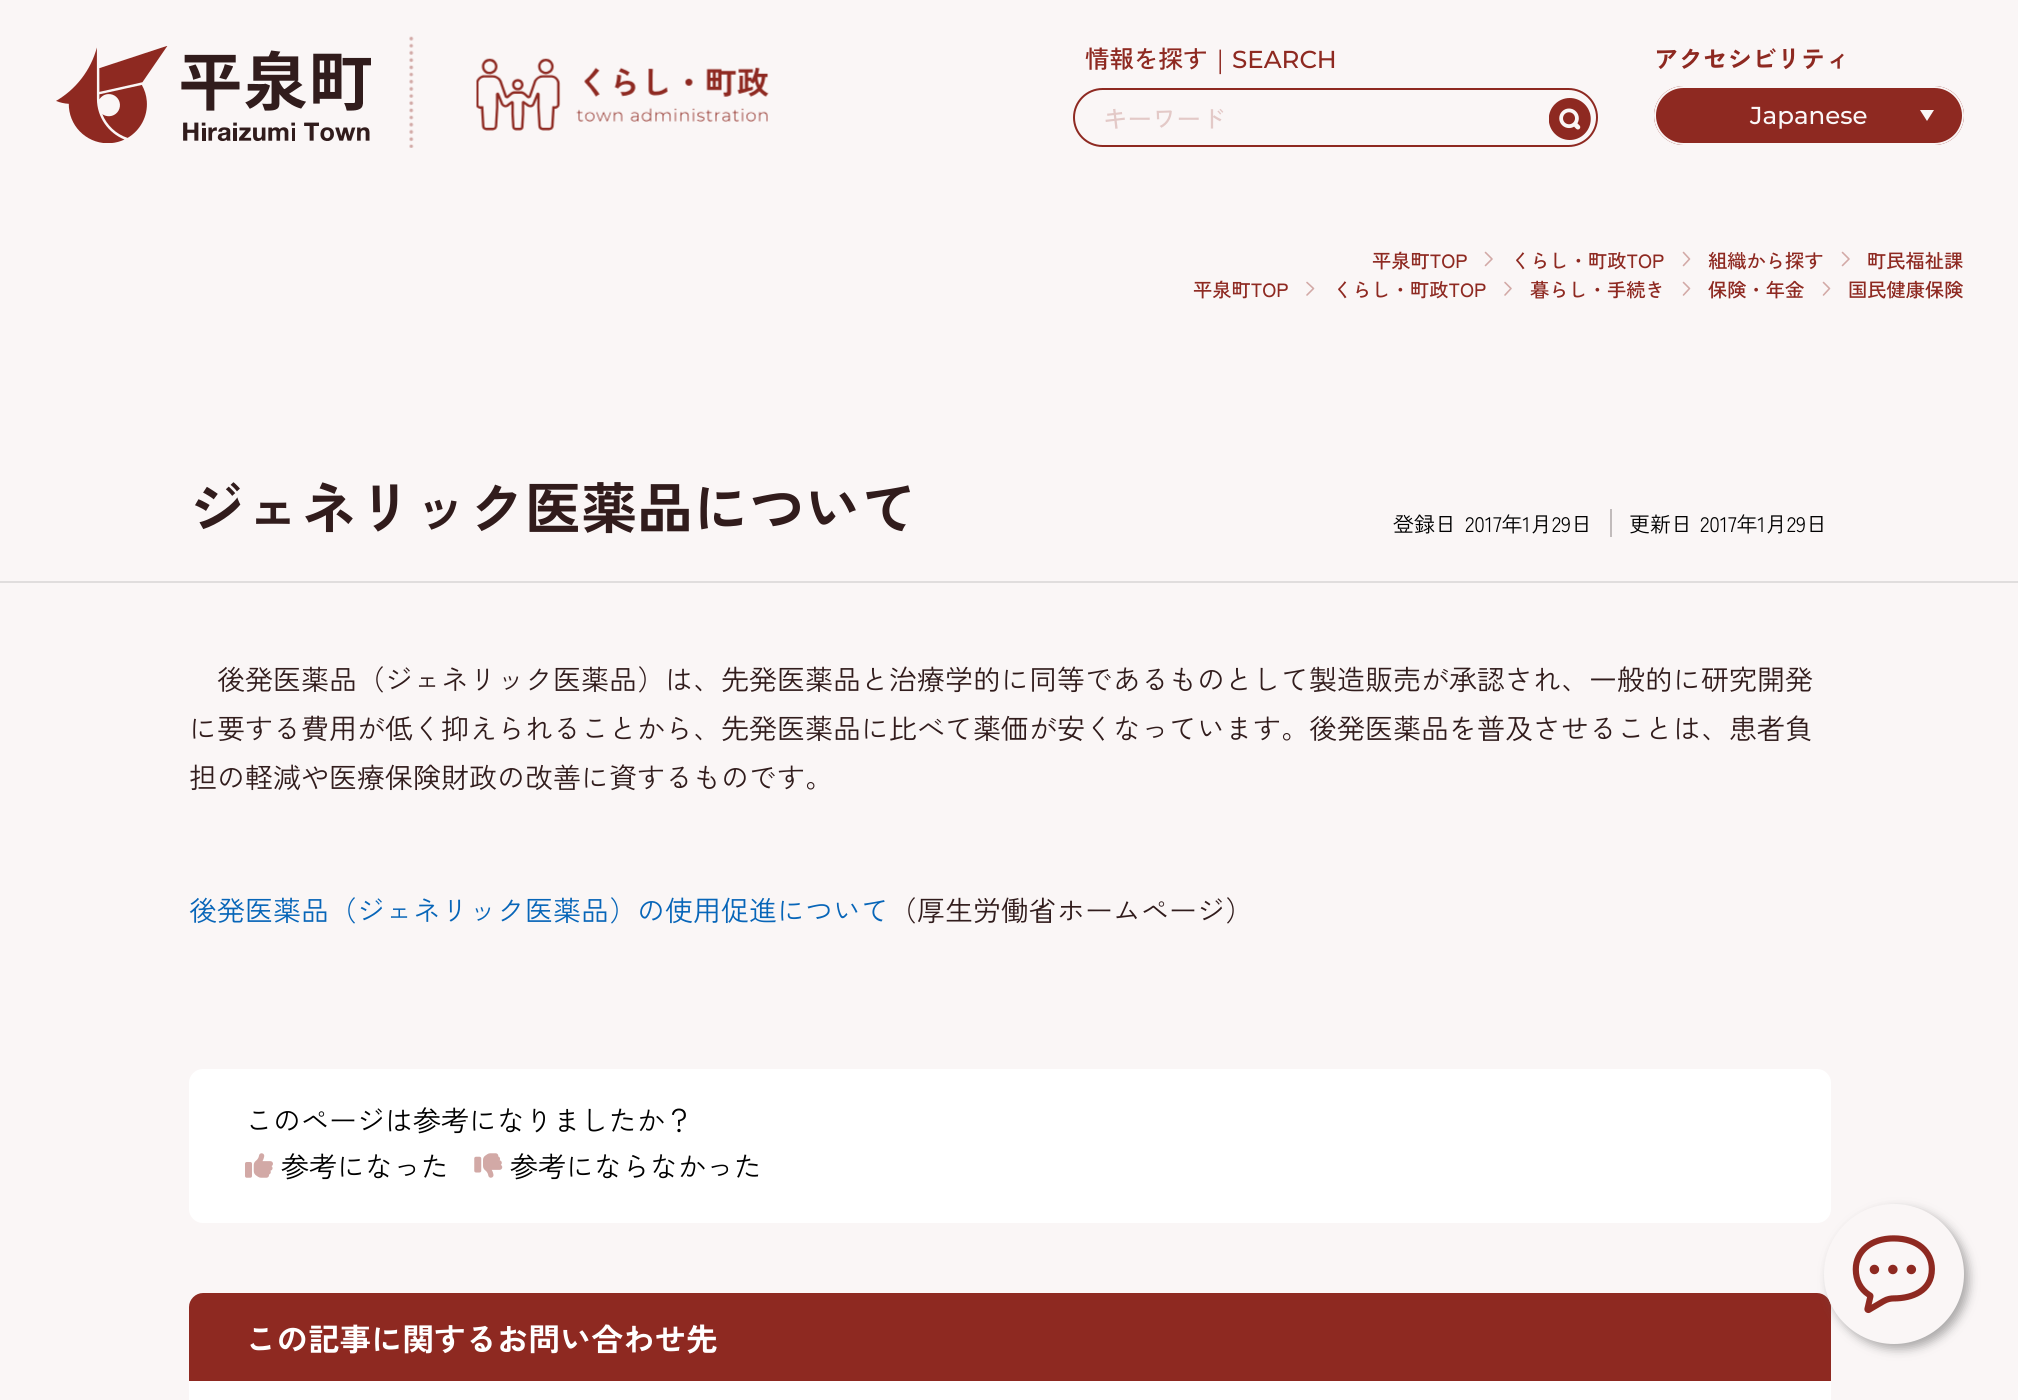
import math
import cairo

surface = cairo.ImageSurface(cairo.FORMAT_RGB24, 2018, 1400)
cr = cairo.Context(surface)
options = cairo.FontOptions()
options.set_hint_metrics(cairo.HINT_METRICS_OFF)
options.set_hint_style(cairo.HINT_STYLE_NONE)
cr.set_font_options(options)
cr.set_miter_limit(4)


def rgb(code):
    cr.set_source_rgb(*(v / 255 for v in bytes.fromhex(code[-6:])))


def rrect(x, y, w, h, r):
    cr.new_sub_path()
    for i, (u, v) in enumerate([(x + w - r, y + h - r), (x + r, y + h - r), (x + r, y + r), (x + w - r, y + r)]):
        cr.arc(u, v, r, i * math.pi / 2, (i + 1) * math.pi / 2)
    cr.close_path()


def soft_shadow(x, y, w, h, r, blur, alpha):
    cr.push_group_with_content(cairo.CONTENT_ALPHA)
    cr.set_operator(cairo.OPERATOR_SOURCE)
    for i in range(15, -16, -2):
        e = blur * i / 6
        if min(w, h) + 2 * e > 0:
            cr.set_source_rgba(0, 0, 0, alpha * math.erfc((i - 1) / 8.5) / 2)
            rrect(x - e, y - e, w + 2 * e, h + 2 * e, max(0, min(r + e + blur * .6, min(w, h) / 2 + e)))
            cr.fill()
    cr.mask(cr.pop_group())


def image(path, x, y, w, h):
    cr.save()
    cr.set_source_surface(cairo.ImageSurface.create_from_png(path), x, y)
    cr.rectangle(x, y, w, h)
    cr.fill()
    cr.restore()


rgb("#faf6f6")
cr.paint()
image("img/1.png", 56, 46, 315, 97)
image("img/2.png", 409, 36, 5, 112)
image("img/3.png", 476, 58, 293, 73)
rrect(1074, 89, 523, 57, 28.5)
rgb("#8e2921")
cr.stroke()
image("img/4.png", 1549, 98, 42, 42)
rrect(1654, 86, 310, 59, 29.5)
cr.fill()
rgb("#faf6f6")
cr.new_path()
cr.move_to(1927, 121)
cr.line_to(1934, 110)
cr.line_to(1920, 110)
cr.fill()
rrect(1655, 87, 308, 57, 28.5)
cr.stroke()
cr.new_path()
cr.move_to(1485.5, 252.5)
cr.line_to(1492, 259)
cr.line_to(1485.5, 265.5)
rgb("#d2a9a6")
cr.set_line_width(1.6)
cr.set_line_cap(cairo.LINE_CAP_ROUND)
cr.set_line_join(cairo.LINE_JOIN_ROUND)
cr.stroke()
cr.new_path()
cr.move_to(1683.5, 252.5)
cr.line_to(1689.5, 259)
cr.line_to(1683.5, 265.5)
cr.stroke()
cr.new_path()
cr.move_to(1842.5, 252.5)
cr.line_to(1849, 259)
cr.line_to(1842.5, 265.5)
cr.stroke()
cr.new_path()
cr.move_to(1307, 282.5)
cr.line_to(1313.5, 288.5)
cr.line_to(1307, 295)
cr.stroke()
cr.new_path()
cr.move_to(1505, 282.5)
cr.line_to(1511, 288.5)
cr.line_to(1505, 295)
cr.stroke()
cr.new_path()
cr.move_to(1683.5, 282.5)
cr.line_to(1689.5, 288.5)
cr.line_to(1683.5, 295)
cr.stroke()
cr.new_path()
cr.move_to(1823.5, 282.5)
cr.line_to(1829.5, 288.5)
cr.line_to(1823.5, 295)
cr.stroke()
rgb("#c1bbbb")
cr.rectangle(1610, 509, 2, 28)
cr.fill()
rgb("#e0dddd")
cr.rectangle(0, 581, 2018, 2)
cr.fill()
rgb("#ffffff")
rrect(189, 1069, 1642, 154, 14)
cr.fill()
image("img/5.png", 245, 1153, 28, 25)
image("img/6.png", 474, 1153, 29, 25)
rgb("#8e2921")
cr.new_path()
cr.move_to(203, 1293)
cr.line_to(1817, 1293)
cr.curve_to(1824.5, 1293, 1831, 1299.5, 1831, 1307)
cr.line_to(1831, 1381)
cr.line_to(189, 1381)
cr.line_to(189, 1307)
cr.curve_to(189, 1299.5, 195.5, 1293, 203, 1293)
cr.close_path()
cr.fill()
rgb("#ffffff")
cr.rectangle(189, 1381, 1642, 19)
cr.fill()
rgb("#5b5b5b")
soft_shadow(1829, 1209, 140, 140, 70, 5, 0.5)
rgb("#faf6f6")
cr.arc(1894, 1274, 70, 0, 2 * math.pi)
cr.fill()
image("img/7.png", 1852, 1235, 83, 79)
cr.select_font_face("Zen Kaku Gothic New Medium")
cr.set_font_size(24.5)
rgb("#8e2921")
cr.move_to(1085, 68)
cr.show_text("情報を探す")
cr.select_font_face("WenQuanYi Zen Hei Medium")
cr.move_to(1208, 68)
cr.show_text("｜")
cr.select_font_face("Montserrat Medium")
cr.move_to(1232, 68)
cr.show_text("SEARCH")
cr.select_font_face("Zen Kaku Gothic New Medium")
rgb("#e3c9c7")
cr.move_to(1103, 128)
cr.show_text("キーワード")
cr.select_font_face("Zen Kaku Gothic New", cairo.FONT_SLANT_NORMAL, cairo.FONT_WEIGHT_BOLD)
rgb("#8e2921")
cr.move_to(1654, 68)
cr.show_text("アクセシビリティ")
cr.select_font_face("Montserrat Medium")
rgb("#faf6f6")
cr.move_to(1750, 124)
cr.show_text("Japanese")
cr.select_font_face("Zen Kaku Gothic New Medium")
cr.set_font_size(19.25)
rgb("#8e2921")
for x, y, s in [
    (1372, 268, "平泉町TOP"),
    (1511, 268, "くらし・町政TOP"),
    (1708, 268, "組織から探す"),
    (1867, 268, "町民福祉課"),
    (1193, 297, "平泉町TOP"),
    (1333, 297, "くらし・町政TOP"),
    (1530, 297, "暮らし・手続き"),
    (1708, 297, "保険・年金"),
    (1848, 297, "国民健康保険"),
]:
    cr.move_to(x, y)
    cr.show_text(s)
cr.select_font_face("Zen Kaku Gothic New", cairo.FONT_SLANT_NORMAL, cairo.FONT_WEIGHT_BOLD)
cr.set_font_size(56)
rgb("#311c1c")
cr.move_to(189, 529)
cr.show_text("ジェネリック医薬品について")
cr.select_font_face("Zen Kaku Gothic New")
cr.set_font_size(21)
rgb("#000000")
for x, y, s in [
    (1393, 532, "登録日"),
    (1465, 532, "2017年1月29日"),
    (1629, 532, "更新日"),
    (1700, 532, "2017年1月29日"),
]:
    cr.move_to(x, y)
    cr.show_text(s)
cr.set_font_size(28)
rgb("#311c1c")
for x, y, s in [
    (217, 690, "後発医薬品（ジェネリック医薬品）は、先発医薬品と治療学的に同等であるものとして製造販売が承認され、一般的に研究開発"),
    (189, 739, "に要する費用が低く抑えられることから、先発医薬品に比べて薬価が安くなっています。後発医薬品を普及させることは、患者負"),
    (189, 788, "担の軽減や医療保険財政の改善に資するものです。"),
]:
    cr.move_to(x, y)
    cr.show_text(s)
rgb("#0765b8")
cr.move_to(189, 921)
cr.show_text("後発医薬品（ジェネリック医薬品）の使用促進について")
rgb("#311c1c")
cr.move_to(889, 921)
cr.show_text("（厚生労働省ホームページ）")
rgb("#000000")
for x, y, s in [
    (245, 1131, "このページは参考になりましたか？"),
    (281, 1177, "参考になった"),
    (510, 1177, "参考にならなかった"),
]:
    cr.move_to(x, y)
    cr.show_text(s)
cr.select_font_face("Zen Kaku Gothic New", cairo.FONT_SLANT_NORMAL, cairo.FONT_WEIGHT_BOLD)
cr.set_font_size(31.5)
rgb("#ffffff")
cr.move_to(245, 1351)
cr.show_text("この記事に関するお問い合わせ先")
surface.write_to_png("page.png")
